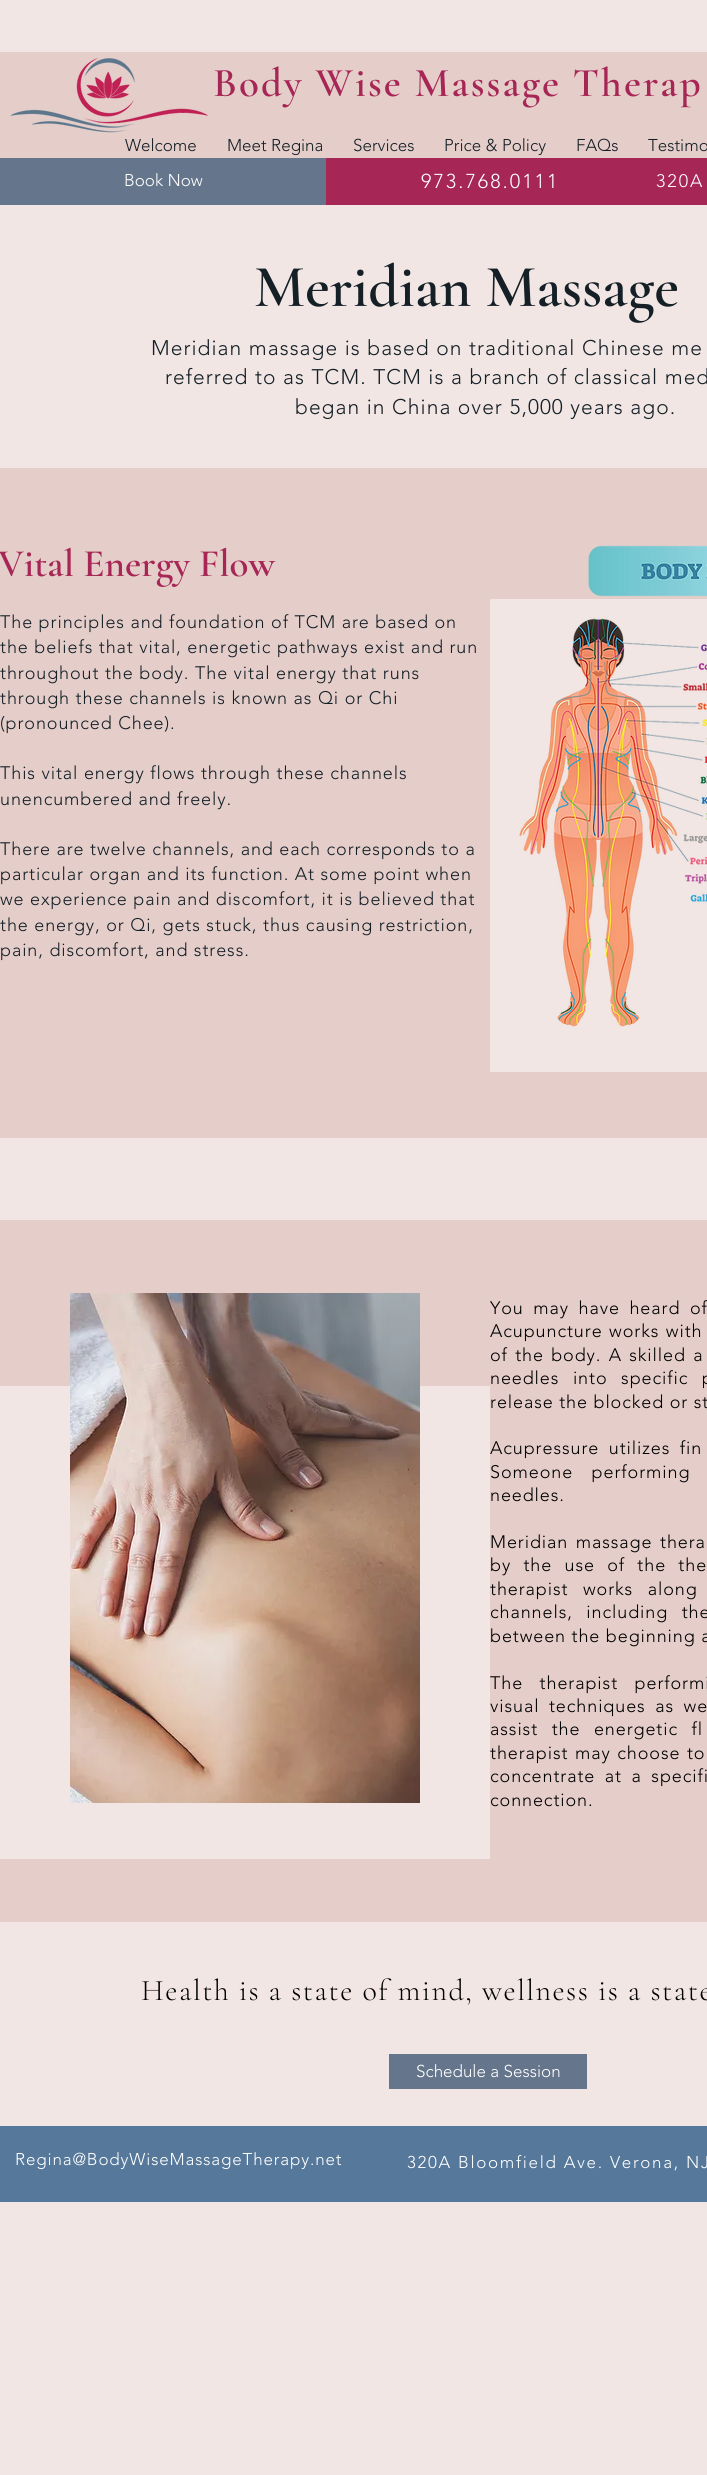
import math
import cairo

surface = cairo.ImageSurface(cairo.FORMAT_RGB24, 707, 2475)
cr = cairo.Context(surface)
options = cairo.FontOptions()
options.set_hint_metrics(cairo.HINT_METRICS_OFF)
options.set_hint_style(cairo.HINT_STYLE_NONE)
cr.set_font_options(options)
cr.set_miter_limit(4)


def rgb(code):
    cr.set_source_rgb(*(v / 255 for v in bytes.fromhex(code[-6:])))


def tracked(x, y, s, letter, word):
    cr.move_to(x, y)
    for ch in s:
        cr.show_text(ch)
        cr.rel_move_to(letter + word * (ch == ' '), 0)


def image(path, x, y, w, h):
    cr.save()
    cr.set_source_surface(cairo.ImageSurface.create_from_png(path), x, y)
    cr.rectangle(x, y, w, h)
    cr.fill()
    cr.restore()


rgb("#f1e6e4")
cr.paint()
rgb("#e5ceca")
cr.rectangle(0, 52, 707, 106)
cr.fill()
image("img/1.png", 10, 57, 198, 76)
for x, y, w, h, color in [
    (0, 158, 326, 47, "#65768c"),
    (326, 158, 381, 47, "#a62655"),
    (0, 468, 707, 670, "#e5ceca"),
    (490, 599, 217, 473, "#f1e6e4"),
]:
    rgb(color)
    cr.rectangle(x, y, w, h)
    cr.fill()
image("img/2.png", 519, 545, 188, 482)
rgb("#e5ceca")
cr.rectangle(0, 1220, 707, 702)
cr.fill()
rgb("#f1e6e4")
cr.rectangle(0, 1386, 490, 473)
cr.fill()
image("img/3.png", 70, 1293, 350, 510)
rgb("#65768c")
cr.rectangle(389, 2054, 198, 35)
cr.fill()
rgb("#55789b")
cr.rectangle(0, 2126, 707, 76)
cr.fill()
cr.select_font_face("Cormorant Garamond SemiBold")
cr.set_font_size(41)
rgb("#a62655")
tracked(213, 96, "Body Wise Massage Therap", 2.05, 0)
cr.select_font_face("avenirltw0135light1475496 Light")
cr.set_font_size(17)
rgb("#141f26")
for x, y, s in [
    (125, 151, "Welcome"),
    (227, 151, "Meet Regina"),
    (353, 151, "Services"),
    (444, 151, "Price & Policy"),
    (576, 151, "FAQs"),
    (648, 151, "Testimo"),
]:
    cr.move_to(x, y)
    cr.show_text(s)
rgb("#ffffff")
cr.move_to(124, 186)
cr.show_text("Book Now")
cr.set_font_size(20)
tracked(421, 188, "973.768.0111", 2, 0)
cr.set_font_size(18)
tracked(656, 187, "320A", 2, 0)
cr.select_font_face("Cormorant Garamond SemiBold")
cr.set_font_size(60)
rgb("#141f26")
cr.move_to(254, 306)
cr.show_text("Meridian Massage")
cr.select_font_face("avenirltw0135light1475496 Light")
cr.set_font_size(21)
for x, y, s in [
    (151, 355, "Meridian massage is based on traditional Chinese me"),
    (165, 384, "referred to as TCM. TCM is a branch of classical med"),
    (295, 414, "began in China over 5,000 years ago."),
]:
    tracked(x, y, s, 1.05, 0)
cr.select_font_face("Cormorant Garamond SemiBold")
cr.set_font_size(39)
rgb("#a62655")
cr.move_to(-2, 576)
cr.show_text("Vital Energy Flow")
cr.select_font_face("avenirltw0135light1475496 Light")
cr.set_font_size(18)
rgb("#141f26")
for x, y, s in [
    (0, 628, "The principles and foundation of TCM are based on"),
    (0, 653, "the beliefs that vital, energetic pathways exist and run"),
    (0, 679, "throughout the body. The vital energy that runs"),
    (0, 704, "through these channels is known as Qi or Chi"),
    (0, 729, "(pronounced Chee)."),
    (0, 779, "This vital energy flows through these channels"),
    (0, 805, "unencumbered and freely."),
    (0, 855, "There are twelve channels, and each corresponds to a"),
    (0, 880, "particular organ and its function. At some point when"),
    (0, 905, "we experience pain and discomfort, it is believed that"),
    (0, 931, "the energy, or Qi, gets stuck, thus causing restriction,"),
    (0, 956, "pain, discomfort, and stress."),
]:
    tracked(x, y, s, 0.9, 0)
rgb("#000000")
tracked(490, 1314, "You may have heard of", 0.9, 4)
tracked(490, 1337, "Acupuncture works with", 0.9, 1)
tracked(490, 1361, "of the body. A skilled a", 0.9, 1.75)
tracked(490, 1384, "needles into specific p", 0.9, 8)
tracked(490, 1408, "release the blocked or st", 0.9, 0)
tracked(490, 1454, "Acupressure utilizes fin", 0.9, 4)
tracked(490, 1478, "Someone performing", 0.9, 13)
tracked(490, 1501, "needles.", 0.9, 0)
tracked(490, 1548, "Meridian massage thera", 0.9, 2)
tracked(490, 1571, "by the use of the the", 0.9, 6.75)
tracked(490, 1595, "therapist works along", 0.9, 9)
tracked(490, 1618, "channels, including the", 0.9, 8)
tracked(490, 1642, "between the beginning a", 0.9, 0)
tracked(490, 1689, "The therapist performi", 0.9, 11)
tracked(490, 1712, "visual techniques as we", 0.9, 4)
tracked(490, 1735, "assist the energetic fl", 0.9, 8)
tracked(490, 1759, "therapist may choose to", 0.9, 1)
tracked(490, 1782, "concentrate at a specifi", 0.9, 4)
tracked(490, 1806, "connection.", 0.9, 0)
cr.select_font_face("Cormorant Garamond Light")
cr.set_font_size(30)
tracked(141, 2000, "Health is a state of mind, wellness is a state", 1.5, 0)
cr.select_font_face("avenirltw0135light1475496 Light")
cr.set_font_size(17)
rgb("#ffffff")
cr.move_to(416, 2077)
cr.show_text("Schedule a Session")
tracked(15, 2165, "Regina@BodyWiseMassageTherapy.net", 0.85, 0)
tracked(407, 2168, "320A Bloomfield Ave. Verona, NJ", 1.7, 0)
surface.write_to_png("page.png")
